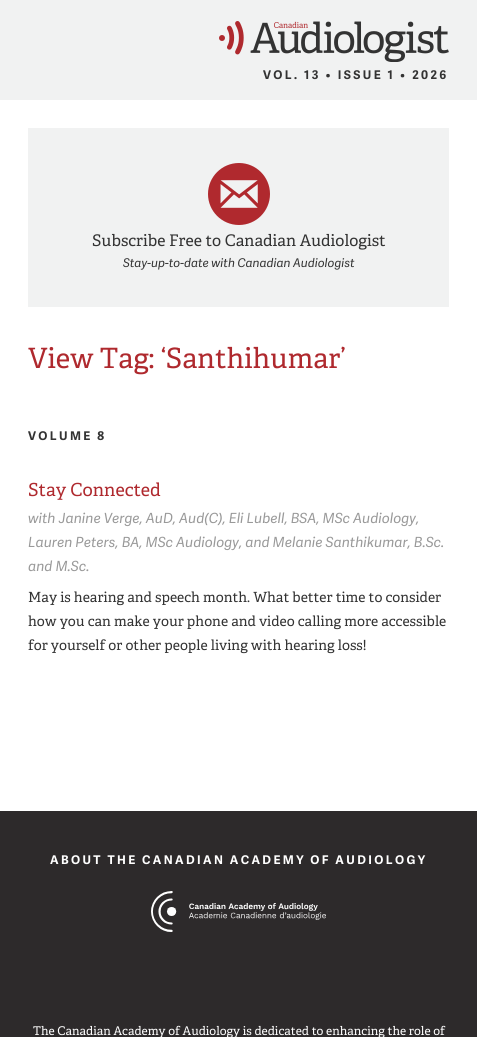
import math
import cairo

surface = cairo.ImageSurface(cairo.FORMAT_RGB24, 477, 1037)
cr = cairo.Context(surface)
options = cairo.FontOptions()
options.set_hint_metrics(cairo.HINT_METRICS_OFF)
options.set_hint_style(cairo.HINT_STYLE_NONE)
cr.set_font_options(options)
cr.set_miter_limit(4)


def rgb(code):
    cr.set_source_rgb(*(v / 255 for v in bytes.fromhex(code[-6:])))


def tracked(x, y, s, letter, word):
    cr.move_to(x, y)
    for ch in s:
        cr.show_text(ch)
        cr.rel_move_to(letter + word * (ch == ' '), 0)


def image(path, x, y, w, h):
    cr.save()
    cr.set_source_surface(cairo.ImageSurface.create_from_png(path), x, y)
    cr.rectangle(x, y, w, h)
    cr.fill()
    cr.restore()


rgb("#2d2a2b")
cr.paint()
rgb("#f1f2f2")
cr.rectangle(0, 0, 477, 100)
cr.fill()
image("img/1.png", 219, 21, 230, 41)
rgb("#ffffff")
cr.rectangle(0, 100, 477, 711)
cr.fill()
rgb("#f1f2f2")
cr.rectangle(28, 128, 421, 179)
cr.fill()
image("img/2.png", 208, 163, 62, 62)
image("img/3.png", 151, 891, 175, 41)
cr.select_font_face("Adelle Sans", cairo.FONT_SLANT_NORMAL, cairo.FONT_WEIGHT_BOLD)
cr.set_font_size(12)
rgb("#333333")
tracked(263, 79, "VOL. 13 • ISSUE 1 • 2026", 2.4, 0)
cr.select_font_face("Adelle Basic")
cr.set_font_size(16)
cr.move_to(92, 246)
cr.show_text("Subscribe Free to Canadian Audiologist")
cr.select_font_face("Adelle Sans", cairo.FONT_SLANT_ITALIC)
cr.set_font_size(12)
cr.move_to(123, 267)
cr.show_text("Stay-up-to-date with Canadian Audiologist")
cr.select_font_face("Adelle Basic")
cr.set_font_size(28)
rgb("#af292e")
cr.move_to(28, 368)
cr.show_text("View Tag: ‘Santhihumar’")
cr.select_font_face("Adelle Sans", cairo.FONT_SLANT_NORMAL, cairo.FONT_WEIGHT_BOLD)
cr.set_font_size(12)
rgb("#333333")
tracked(28, 440, "VOLUME 8", 2.4, 0)
cr.select_font_face("Adelle Basic")
cr.set_font_size(18)
rgb("#af292e")
cr.move_to(28, 496)
cr.show_text("Stay Connected")
cr.select_font_face("Adelle Sans", cairo.FONT_SLANT_ITALIC)
cr.set_font_size(14)
rgb("#999999")
for x, y, s in [
    (28, 523, "with Janine Verge, AuD, Aud(C), Eli Lubell, BSA, MSc Audiology,"),
    (28, 547, "Lauren Peters, BA, MSc Audiology, and Melanie Santhikumar, B.Sc."),
    (28, 571, "and M.Sc."),
]:
    cr.move_to(x, y)
    cr.show_text(s)
cr.select_font_face("Adelle Basic")
rgb("#333333")
for x, y, s in [
    (28, 602, "May is hearing and speech month. What better time to consider"),
    (28, 626, "how you can make your phone and video calling more accessible"),
    (28, 650, "for yourself or other people living with hearing loss!"),
]:
    cr.move_to(x, y)
    cr.show_text(s)
cr.select_font_face("Adelle Sans", cairo.FONT_SLANT_NORMAL, cairo.FONT_WEIGHT_BOLD)
cr.set_font_size(12)
rgb("#ffffff")
tracked(50, 864, "ABOUT THE CANADIAN ACADEMY OF AUDIOLOGY", 2.4, 0)
cr.select_font_face("Adelle Basic")
cr.move_to(33, 1035)
cr.show_text("The Canadian Academy of Audiology is dedicated to enhancing the role of")
surface.write_to_png("page.png")
